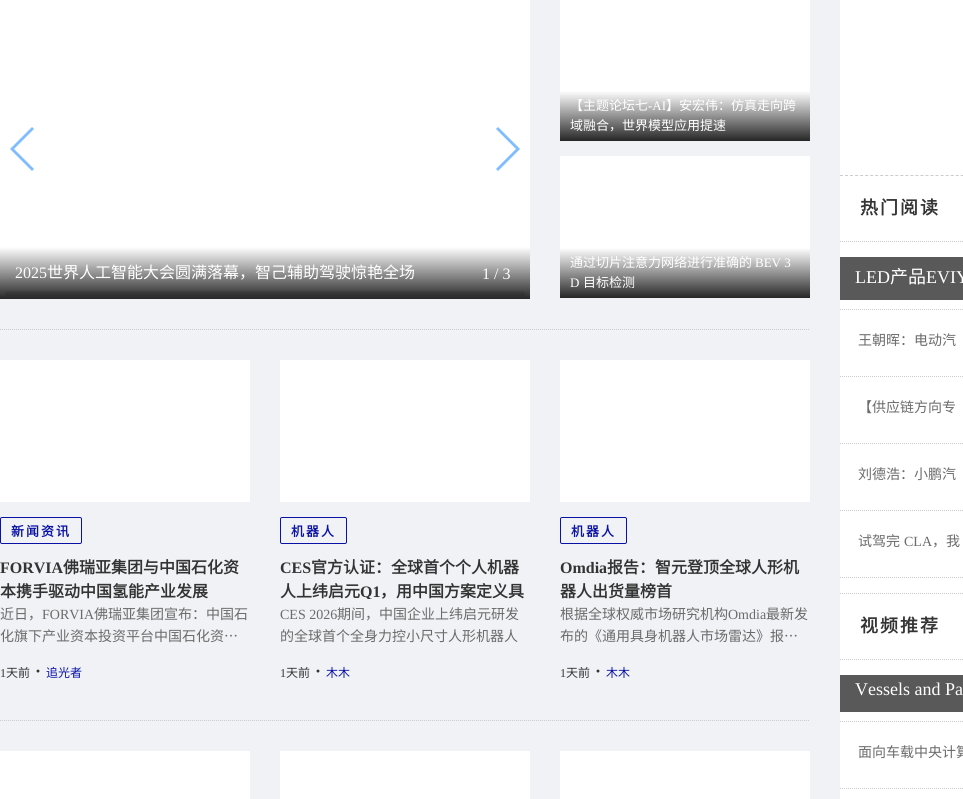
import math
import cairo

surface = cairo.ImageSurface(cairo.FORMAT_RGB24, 963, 799)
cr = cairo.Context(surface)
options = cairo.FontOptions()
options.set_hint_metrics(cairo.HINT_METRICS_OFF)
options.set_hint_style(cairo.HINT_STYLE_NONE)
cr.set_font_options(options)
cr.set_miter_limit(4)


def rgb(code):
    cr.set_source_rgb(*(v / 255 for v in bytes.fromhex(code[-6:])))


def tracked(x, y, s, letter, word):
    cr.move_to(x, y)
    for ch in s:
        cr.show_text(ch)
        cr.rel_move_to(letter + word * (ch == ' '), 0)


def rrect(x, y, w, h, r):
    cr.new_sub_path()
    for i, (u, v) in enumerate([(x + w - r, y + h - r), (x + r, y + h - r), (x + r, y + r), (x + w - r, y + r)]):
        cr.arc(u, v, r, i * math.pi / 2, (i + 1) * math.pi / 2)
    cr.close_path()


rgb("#f1f2f6")
cr.paint()
rgb("#ffffff")
cr.rectangle(0, 0, 530, 247)
cr.fill()
rgb("#80bdff")
cr.new_path()
cr.move_to(10, 149)
cr.line_to(32, 127)
cr.line_to(34, 129)
cr.line_to(14, 149)
cr.line_to(34, 169)
cr.line_to(32, 171)
cr.close_path()
cr.fill()
cr.new_path()
cr.move_to(520, 149)
cr.line_to(498, 171)
cr.line_to(496, 169)
cr.line_to(516, 149)
cr.line_to(496, 129)
cr.line_to(498, 127)
cr.close_path()
cr.fill()
gradient = cairo.LinearGradient(265, 247, 265, 299)
gradient.add_color_stop_rgba(0, 1, 1, 1, 1)
gradient.add_color_stop_rgba(1, 0.149, 0.149, 0.149, 1)
cr.set_source(gradient)
cr.rectangle(0, 247, 530, 52)
cr.fill()
cr.set_source_rgba(0, 0, 0, 0.1)
rrect(5, 291, 520, 5, 2.5)
cr.fill()
rgb("#ffffff")
cr.rectangle(560, 0, 250, 91)
cr.fill()
gradient = cairo.LinearGradient(685, 91, 685, 141)
gradient.add_color_stop_rgba(0, 1, 1, 1, 1)
gradient.add_color_stop_rgba(1, 0.149, 0.149, 0.149, 1)
cr.set_source(gradient)
cr.rectangle(560, 91, 250, 50)
cr.fill()
rgb("#ffffff")
cr.rectangle(560, 156, 250, 92)
cr.fill()
gradient = cairo.LinearGradient(685, 248, 685, 298)
gradient.add_color_stop_rgba(0, 1, 1, 1, 1)
gradient.add_color_stop_rgba(1, 0.149, 0.149, 0.149, 1)
cr.set_source(gradient)
cr.rectangle(560, 248, 250, 50)
cr.fill()
cr.new_path()
cr.move_to(0, 329.5)
cr.line_to(280, 329.5)
rgb("#cccccc")
cr.set_line_width(1)
cr.set_dash([1, 1])
cr.stroke()
rgb("#ffffff")
cr.rectangle(0, 360, 250, 142)
cr.fill()
rrect(0.5, 517.5, 81, 26, 1.5)
rgb("#0912a4")
cr.set_dash([])
cr.stroke()
cr.new_path()
cr.move_to(280, 329.5)
cr.line_to(560, 329.5)
rgb("#cccccc")
cr.set_dash([1, 1])
cr.stroke()
rgb("#ffffff")
cr.rectangle(280, 360, 250, 142)
cr.fill()
rrect(280.5, 517.5, 66, 26, 1.5)
rgb("#0912a4")
cr.set_dash([])
cr.stroke()
cr.new_path()
cr.move_to(560, 329.5)
cr.line_to(810, 329.5)
rgb("#cccccc")
cr.set_dash([1, 1])
cr.stroke()
rgb("#ffffff")
cr.rectangle(560, 360, 250, 142)
cr.fill()
rrect(560.5, 517.5, 66, 26, 1.5)
rgb("#0912a4")
cr.set_dash([])
cr.stroke()
cr.new_path()
cr.move_to(0, 720.5)
cr.line_to(280, 720.5)
rgb("#cccccc")
cr.set_dash([1, 1])
cr.stroke()
rgb("#ffffff")
cr.rectangle(0, 751, 250, 48)
cr.fill()
cr.new_path()
cr.move_to(280, 720.5)
cr.line_to(560, 720.5)
rgb("#cccccc")
cr.stroke()
rgb("#ffffff")
cr.rectangle(280, 751, 250, 48)
cr.fill()
cr.new_path()
cr.move_to(560, 720.5)
cr.line_to(810, 720.5)
rgb("#cccccc")
cr.stroke()
rgb("#ffffff")
cr.rectangle(560, 751, 250, 48)
cr.fill()
cr.rectangle(840, 0, 123, 799)
cr.fill()
cr.new_path()
cr.move_to(840, 175.5)
cr.line_to(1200, 175.5)
rgb("#cccccc")
cr.set_dash([3, 2.03])
cr.stroke()
cr.new_path()
cr.move_to(840, 241.5)
cr.line_to(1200, 241.5)
cr.set_dash([1, 1])
cr.stroke()
cr.new_path()
cr.move_to(840, 593.5)
cr.line_to(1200, 593.5)
cr.stroke()
cr.new_path()
cr.move_to(840, 309.5)
cr.line_to(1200, 309.5)
cr.stroke()
rgb("#595959")
cr.rectangle(840, 257, 123, 43)
cr.fill()
cr.new_path()
cr.move_to(840, 376.5)
cr.line_to(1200, 376.5)
rgb("#cccccc")
cr.stroke()
cr.new_path()
cr.move_to(840, 443.5)
cr.line_to(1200, 443.5)
cr.stroke()
cr.new_path()
cr.move_to(840, 510.5)
cr.line_to(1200, 510.5)
cr.stroke()
cr.new_path()
cr.move_to(840, 577.5)
cr.line_to(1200, 577.5)
cr.stroke()
cr.new_path()
cr.move_to(840, 659.5)
cr.line_to(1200, 659.5)
cr.stroke()
cr.new_path()
cr.move_to(840, 721.5)
cr.line_to(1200, 721.5)
cr.stroke()
rgb("#595959")
cr.rectangle(840, 675, 123, 37)
cr.fill()
cr.new_path()
cr.move_to(840, 788.5)
cr.line_to(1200, 788.5)
rgb("#cccccc")
cr.stroke()
cr.select_font_face("Liberation Serif")
cr.set_font_size(16)
rgb("#ffffff")
cr.move_to(15, 278)
cr.show_text("2025")
cr.select_font_face("Noto Sans CJK SC")
cr.move_to(47, 278)
cr.show_text("世界人工智能大会圆满落幕，智己辅助驾驶惊艳全场")
cr.select_font_face("Liberation Serif")
cr.move_to(482, 279)
cr.show_text("1 / 3")
cr.select_font_face("Noto Sans CJK SC")
cr.set_font_size(13)
cr.move_to(570, 110)
cr.show_text("【主题论坛七")
cr.select_font_face("Liberation Serif")
cr.move_to(648, 110)
cr.show_text("-AI")
cr.select_font_face("Noto Sans CJK SC")
for x, y, s in [
    (666, 110, "】安宏伟：仿真走向跨"),
    (570, 130, "域融合，世界模型应用提速"),
    (570, 267, "通过切片注意力网络进行准确的"),
]:
    cr.move_to(x, y)
    cr.show_text(s)
cr.select_font_face("Liberation Serif")
cr.move_to(755, 267)
cr.show_text("BEV 3")
cr.move_to(570, 287)
cr.show_text("D")
cr.select_font_face("Noto Sans CJK SC")
cr.move_to(583, 287)
cr.show_text("目标检测")
cr.select_font_face("Noto Sans CJK SC", cairo.FONT_SLANT_NORMAL, cairo.FONT_WEIGHT_BOLD)
rgb("#0912a4")
tracked(11, 536, "新闻资讯", 2, 0)
cr.select_font_face("Liberation Serif", cairo.FONT_SLANT_NORMAL, cairo.FONT_WEIGHT_BOLD)
cr.set_font_size(16)
rgb("#333333")
cr.move_to(0, 573)
cr.show_text("FORVIA")
cr.select_font_face("Noto Sans CJK SC", cairo.FONT_SLANT_NORMAL, cairo.FONT_WEIGHT_BOLD)
cr.move_to(63, 573)
cr.show_text("佛瑞亚集团与中国石化资")
cr.move_to(0, 597)
cr.show_text("本携手驱动中国氢能产业发展")
cr.select_font_face("Noto Sans CJK SC")
cr.set_font_size(14)
rgb("#6b6b6b")
cr.move_to(0, 619)
cr.show_text("近日，")
cr.select_font_face("Liberation Serif")
cr.move_to(42, 619)
cr.show_text("FORVIA")
cr.select_font_face("Noto Sans CJK SC")
cr.move_to(94, 619)
cr.show_text("佛瑞亚集团宣布：中国石")
cr.move_to(0, 641)
cr.show_text("化旗下产业资本投资平台中国石化资…")
cr.select_font_face("Liberation Serif")
cr.set_font_size(12)
rgb("#333333")
cr.move_to(0, 677)
cr.show_text("1")
cr.select_font_face("Noto Sans CJK SC")
cr.move_to(6, 677)
cr.show_text("天前")
cr.select_font_face("Liberation Serif", cairo.FONT_SLANT_NORMAL, cairo.FONT_WEIGHT_BOLD)
cr.set_font_size(18)
cr.move_to(35, 677)
cr.show_text("·")
cr.select_font_face("Noto Sans CJK SC")
cr.set_font_size(12)
rgb("#0912a4")
cr.move_to(46, 677)
cr.show_text("追光者")
cr.select_font_face("Noto Sans CJK SC", cairo.FONT_SLANT_NORMAL, cairo.FONT_WEIGHT_BOLD)
cr.set_font_size(13)
tracked(291, 536, "机器人", 2, 0)
cr.select_font_face("Liberation Serif", cairo.FONT_SLANT_NORMAL, cairo.FONT_WEIGHT_BOLD)
cr.set_font_size(16)
rgb("#333333")
cr.move_to(280, 573)
cr.show_text("CES")
cr.select_font_face("Noto Sans CJK SC", cairo.FONT_SLANT_NORMAL, cairo.FONT_WEIGHT_BOLD)
cr.move_to(311, 573)
cr.show_text("官方认证：全球首个个人机器")
cr.move_to(280, 597)
cr.show_text("人上纬启元")
cr.save()
cr.rectangle(280, 554, 250, 45)
cr.clip()
cr.select_font_face("Liberation Serif", cairo.FONT_SLANT_NORMAL, cairo.FONT_WEIGHT_BOLD)
cr.move_to(360, 597)
cr.show_text("Q1")
cr.restore()
cr.move_to(380, 597)
cr.show_text("，用中国方案定义具")
cr.select_font_face("Liberation Serif")
cr.set_font_size(14)
rgb("#6b6b6b")
cr.move_to(280, 619)
cr.show_text("CES 2026")
cr.select_font_face("Noto Sans CJK SC")
cr.move_to(337, 619)
cr.show_text("期间，中国企业上纬启元研发")
cr.move_to(280, 641)
cr.show_text("的全球首个全身力控小尺寸人形机器人")
cr.select_font_face("Liberation Serif")
cr.set_font_size(12)
rgb("#333333")
cr.move_to(280, 677)
cr.show_text("1")
cr.select_font_face("Noto Sans CJK SC")
cr.move_to(286, 677)
cr.show_text("天前")
cr.select_font_face("Liberation Serif", cairo.FONT_SLANT_NORMAL, cairo.FONT_WEIGHT_BOLD)
cr.set_font_size(18)
cr.move_to(315, 677)
cr.show_text("·")
cr.select_font_face("Noto Sans CJK SC")
cr.set_font_size(12)
rgb("#0912a4")
cr.move_to(326, 677)
cr.show_text("木木")
cr.select_font_face("Noto Sans CJK SC", cairo.FONT_SLANT_NORMAL, cairo.FONT_WEIGHT_BOLD)
cr.set_font_size(13)
tracked(571, 536, "机器人", 2, 0)
cr.select_font_face("Liberation Serif", cairo.FONT_SLANT_NORMAL, cairo.FONT_WEIGHT_BOLD)
cr.set_font_size(16)
rgb("#333333")
cr.move_to(560, 573)
cr.show_text("Omdia")
cr.select_font_face("Noto Sans CJK SC", cairo.FONT_SLANT_NORMAL, cairo.FONT_WEIGHT_BOLD)
cr.move_to(607, 573)
cr.show_text("报告：智元登顶全球人形机")
cr.move_to(560, 597)
cr.show_text("器人出货量榜首")
cr.select_font_face("Noto Sans CJK SC")
cr.set_font_size(14)
rgb("#6b6b6b")
cr.move_to(560, 619)
cr.show_text("根据全球权威市场研究机构")
cr.select_font_face("Liberation Serif")
cr.move_to(728, 619)
cr.show_text("Omdia")
cr.select_font_face("Noto Sans CJK SC")
cr.move_to(766, 619)
cr.show_text("最新发")
cr.move_to(560, 641)
cr.show_text("布的《通用具身机器人市场雷达》报…")
cr.select_font_face("Liberation Serif")
cr.set_font_size(12)
rgb("#333333")
cr.move_to(560, 677)
cr.show_text("1")
cr.select_font_face("Noto Sans CJK SC")
cr.move_to(566, 677)
cr.show_text("天前")
cr.select_font_face("Liberation Serif", cairo.FONT_SLANT_NORMAL, cairo.FONT_WEIGHT_BOLD)
cr.set_font_size(18)
cr.move_to(595, 677)
cr.show_text("·")
cr.select_font_face("Noto Sans CJK SC")
cr.set_font_size(12)
rgb("#0912a4")
cr.move_to(606, 677)
cr.show_text("木木")
cr.select_font_face("Noto Sans CJK SC", cairo.FONT_SLANT_NORMAL, cairo.FONT_WEIGHT_BOLD)
cr.set_font_size(18)
rgb("#333333")
tracked(860, 214, "热门阅读", 2, 0)
cr.select_font_face("Liberation Serif")
rgb("#ffffff")
cr.move_to(855, 283)
cr.show_text("LED")
cr.select_font_face("Noto Sans CJK SC")
cr.move_to(890, 283)
cr.show_text("产品")
cr.select_font_face("Liberation Serif")
cr.move_to(926, 283)
cr.show_text("EVIY")
cr.select_font_face("Noto Sans CJK SC")
cr.set_font_size(14)
rgb("#6b6b6b")
for x, y, s in [
    (858, 345, "王朝晖：电动汽"),
    (858, 412, "【供应链方向专"),
    (858, 479, "刘德浩：小鹏汽"),
    (858, 546, "试驾完"),
]:
    cr.move_to(x, y)
    cr.show_text(s)
cr.select_font_face("Liberation Serif")
cr.move_to(904, 546)
cr.show_text("CLA")
cr.select_font_face("Noto Sans CJK SC")
cr.move_to(932, 546)
cr.show_text("，我")
cr.select_font_face("Noto Sans CJK SC", cairo.FONT_SLANT_NORMAL, cairo.FONT_WEIGHT_BOLD)
cr.set_font_size(18)
rgb("#333333")
tracked(860, 632, "视频推荐", 2, 0)
cr.select_font_face("Liberation Serif")
rgb("#ffffff")
cr.move_to(855, 695)
cr.show_text("Vessels and Pa")
cr.select_font_face("Noto Sans CJK SC")
cr.set_font_size(14)
rgb("#6b6b6b")
cr.move_to(858, 757)
cr.show_text("面向车载中央计算")
surface.write_to_png("page.png")
